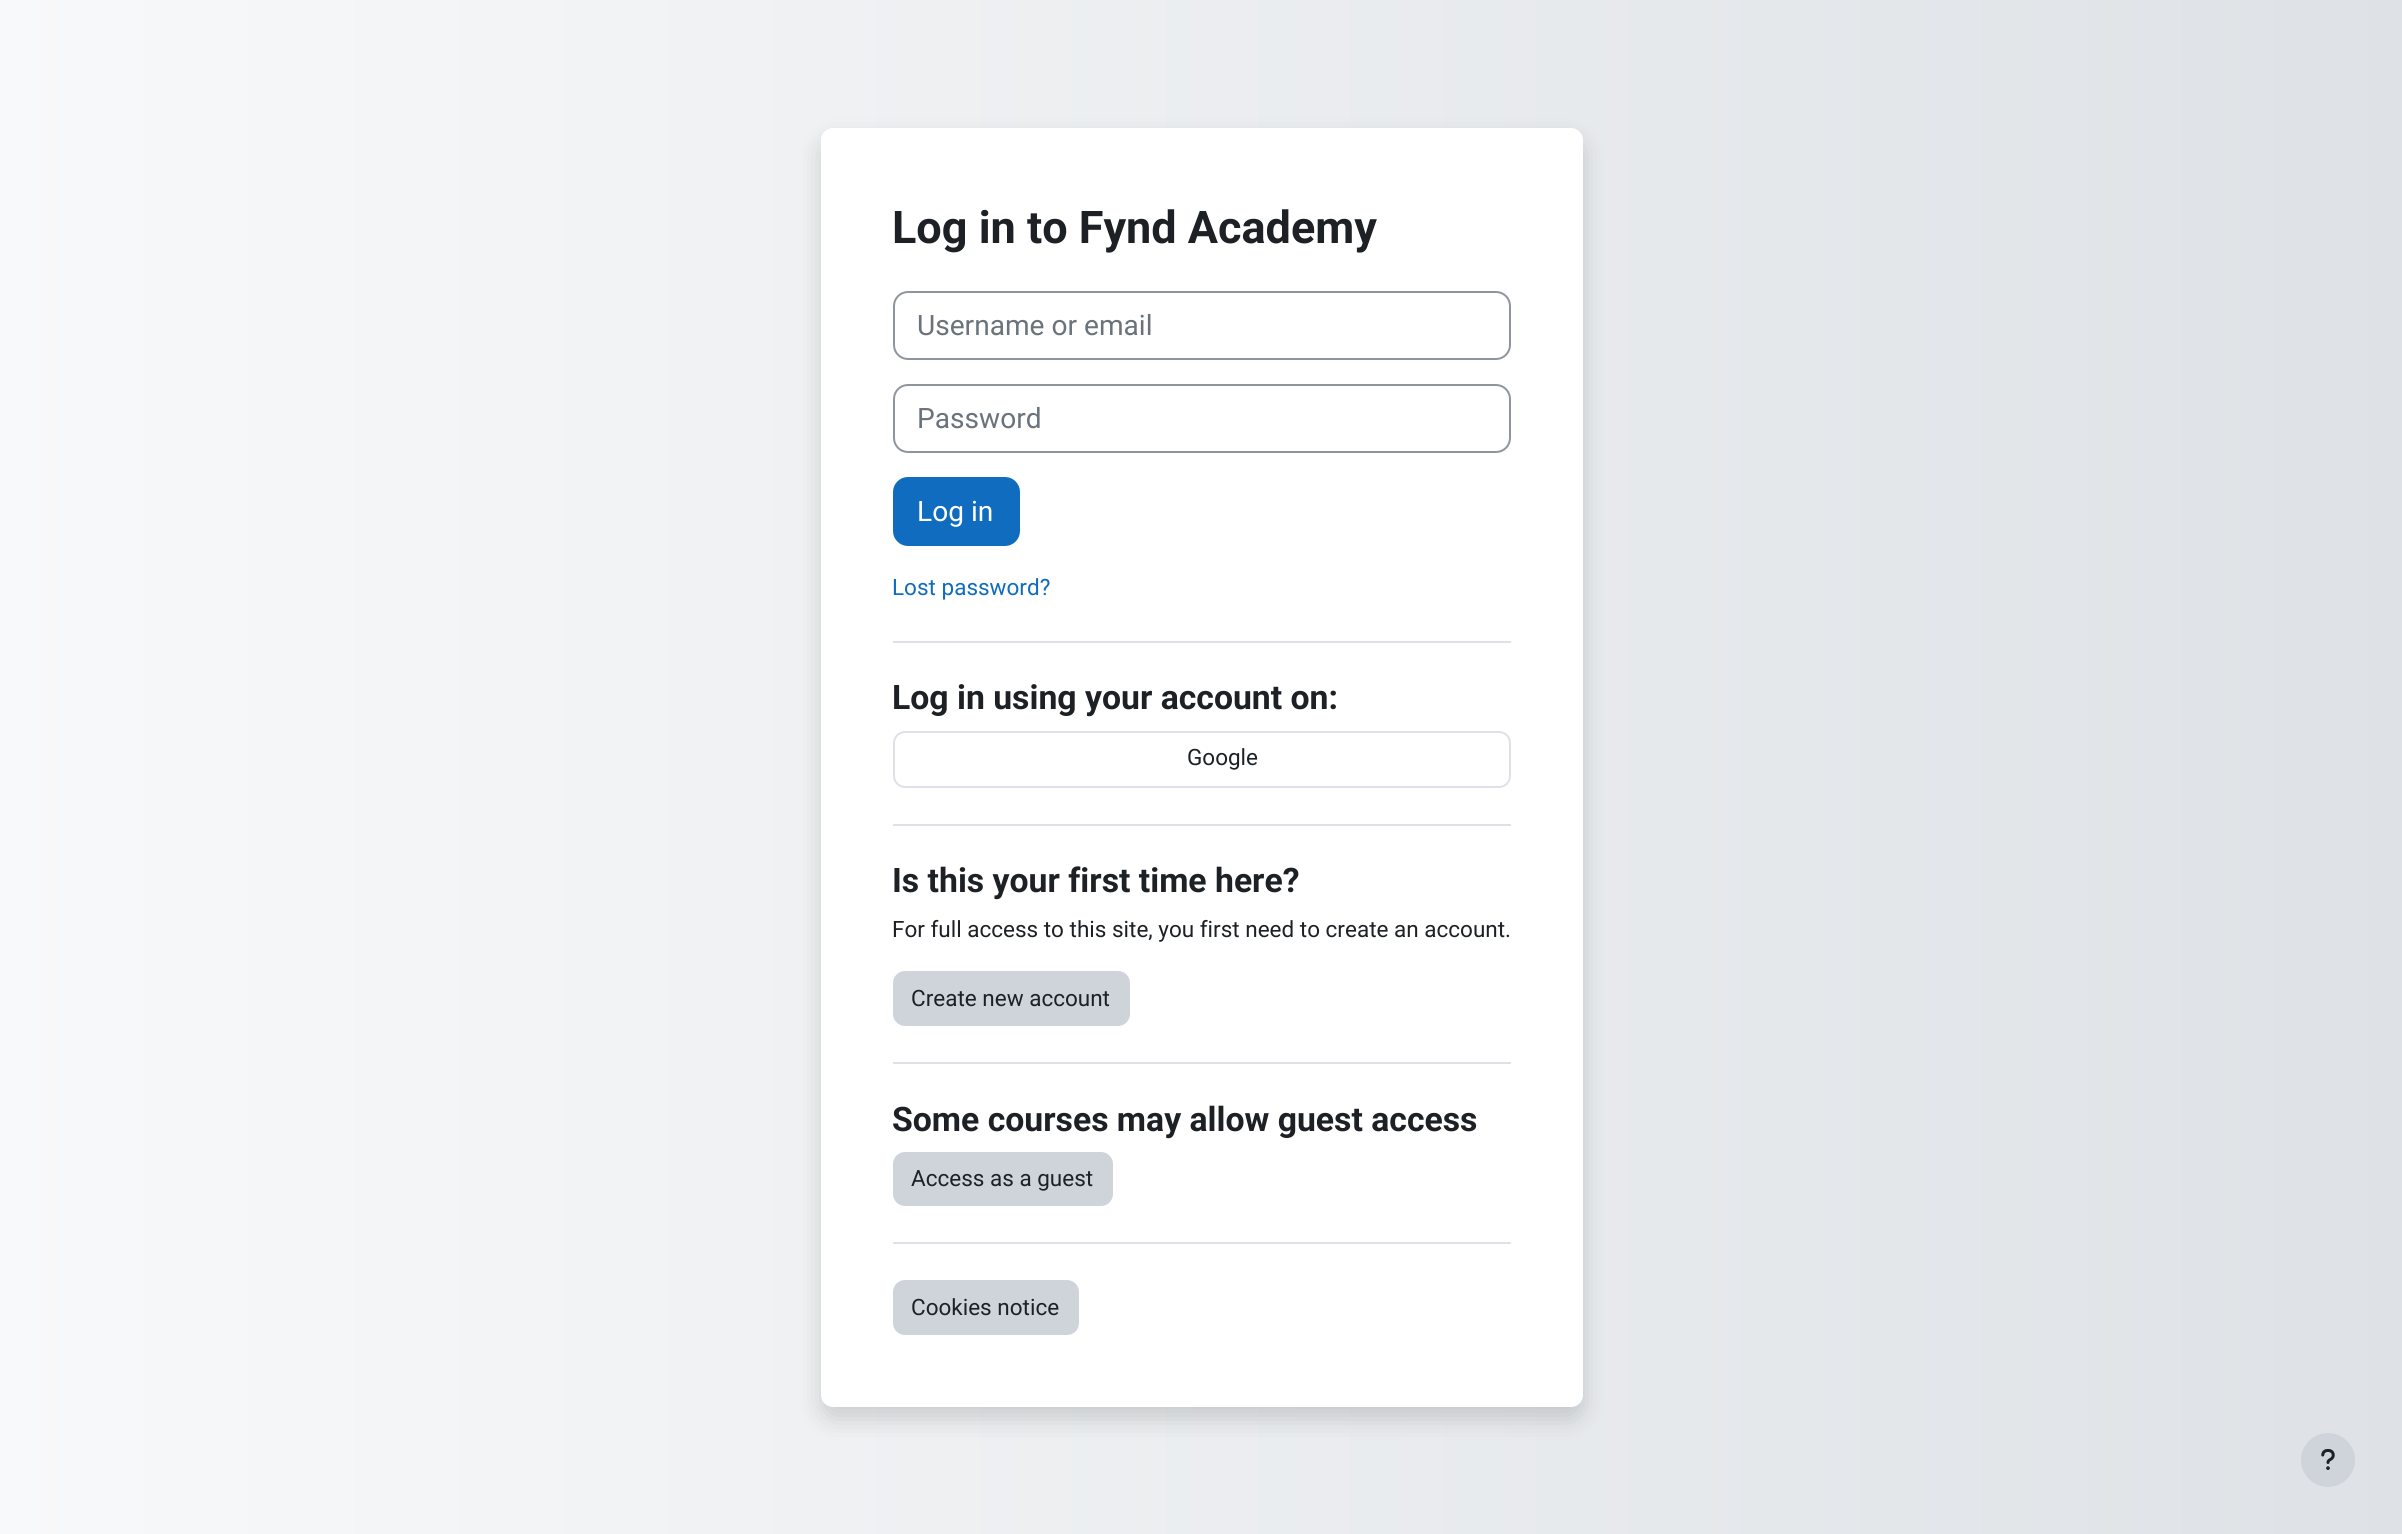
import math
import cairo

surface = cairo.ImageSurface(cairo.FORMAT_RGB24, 2402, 1534)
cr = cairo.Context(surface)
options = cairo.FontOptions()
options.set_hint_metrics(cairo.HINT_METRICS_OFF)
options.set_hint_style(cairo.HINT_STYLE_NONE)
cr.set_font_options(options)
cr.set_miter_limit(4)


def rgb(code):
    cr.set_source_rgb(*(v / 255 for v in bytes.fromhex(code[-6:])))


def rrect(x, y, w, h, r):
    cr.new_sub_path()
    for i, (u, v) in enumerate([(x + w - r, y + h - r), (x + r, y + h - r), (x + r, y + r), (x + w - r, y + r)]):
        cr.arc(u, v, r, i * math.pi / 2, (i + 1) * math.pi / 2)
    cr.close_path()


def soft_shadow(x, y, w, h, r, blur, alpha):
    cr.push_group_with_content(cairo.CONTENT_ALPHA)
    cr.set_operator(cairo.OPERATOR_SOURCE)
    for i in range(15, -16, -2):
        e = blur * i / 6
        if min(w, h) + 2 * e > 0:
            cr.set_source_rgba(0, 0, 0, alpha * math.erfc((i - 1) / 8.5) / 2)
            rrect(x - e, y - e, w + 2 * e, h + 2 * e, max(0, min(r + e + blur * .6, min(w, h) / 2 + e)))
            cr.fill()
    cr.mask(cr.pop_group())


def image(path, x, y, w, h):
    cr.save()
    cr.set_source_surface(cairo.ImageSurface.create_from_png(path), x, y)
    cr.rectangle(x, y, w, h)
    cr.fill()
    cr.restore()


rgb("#ffffff")
cr.paint()
gradient = cairo.LinearGradient(0, 767, 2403, 767)
gradient.add_color_stop_rgba(0, 0.973, 0.976, 0.98, 1)
gradient.add_color_stop_rgba(1, 0.871, 0.886, 0.902, 1)
cr.set_source(gradient)
cr.rectangle(0, 0, 2402, 1534)
cr.fill()
rgb("#000000")
soft_shadow(821, 140, 762, 1279, 12, 12, 0.15)
rgb("#ffffff")
rrect(821, 128, 762, 1279, 12)
cr.fill()
rrect(894, 292, 616, 67, 14)
rgb("#8f959e")
cr.stroke()
rrect(894, 385, 616, 67, 14)
cr.stroke()
rgb("#0f6cbf")
rrect(894, 478, 125, 67, 14)
cr.fill_preserve()
cr.stroke()
rgb("#dee2e6")
cr.rectangle(893, 641, 618, 2)
cr.fill()
rrect(894, 732, 616, 55, 11)
cr.stroke()
cr.rectangle(893, 824, 618, 2)
cr.fill()
rgb("#ced4da")
rrect(894, 972, 235, 53, 11)
cr.fill_preserve()
cr.stroke()
rgb("#dee2e6")
cr.rectangle(893, 1062, 618, 2)
cr.fill()
rgb("#ced4da")
rrect(894, 1153, 218, 52, 11)
cr.fill_preserve()
cr.stroke()
rgb("#dee2e6")
cr.rectangle(893, 1242, 618, 2)
cr.fill()
rgb("#ced4da")
rrect(894, 1281, 184, 53, 11)
cr.fill_preserve()
cr.stroke()
cr.arc(2328, 1460, 27, 0, 2 * math.pi)
cr.fill()
image("img/1.png", 2321, 1449, 14, 21)
cr.select_font_face("Roboto", cairo.FONT_SLANT_NORMAL, cairo.FONT_WEIGHT_BOLD)
cr.set_font_size(45)
rgb("#1d2125")
cr.move_to(892, 243)
cr.show_text("Log in to Fynd Academy")
cr.select_font_face("Roboto")
cr.set_font_size(28.1)
rgb("#6a737b")
cr.move_to(917, 335)
cr.show_text("Username or email")
cr.move_to(917, 428)
cr.show_text("Password")
rgb("#ffffff")
cr.move_to(917, 521)
cr.show_text("Log in")
cr.set_font_size(22.5)
rgb("#0f6cbf")
cr.move_to(892, 595)
cr.show_text("Lost password?")
cr.select_font_face("Roboto", cairo.FONT_SLANT_NORMAL, cairo.FONT_WEIGHT_BOLD)
cr.set_font_size(33.75)
rgb("#1d2125")
cr.move_to(892, 709)
cr.show_text("Log in using your account on:")
cr.select_font_face("Roboto")
cr.set_font_size(22.5)
cr.move_to(1187, 765)
cr.show_text("Google")
cr.select_font_face("Roboto", cairo.FONT_SLANT_NORMAL, cairo.FONT_WEIGHT_BOLD)
cr.set_font_size(33.75)
cr.move_to(892, 892)
cr.show_text("Is this your first time here?")
cr.select_font_face("Roboto")
cr.set_font_size(22.5)
cr.move_to(892, 937)
cr.show_text("For full access to this site, you first need to create an account.")
cr.move_to(911, 1006)
cr.show_text("Create new account")
cr.select_font_face("Roboto", cairo.FONT_SLANT_NORMAL, cairo.FONT_WEIGHT_BOLD)
cr.set_font_size(33.75)
cr.move_to(892, 1131)
cr.show_text("Some courses may allow guest access")
cr.select_font_face("Roboto")
cr.set_font_size(22.5)
cr.move_to(911, 1186)
cr.show_text("Access as a guest")
cr.move_to(911, 1315)
cr.show_text("Cookies notice")
surface.write_to_png("page.png")
